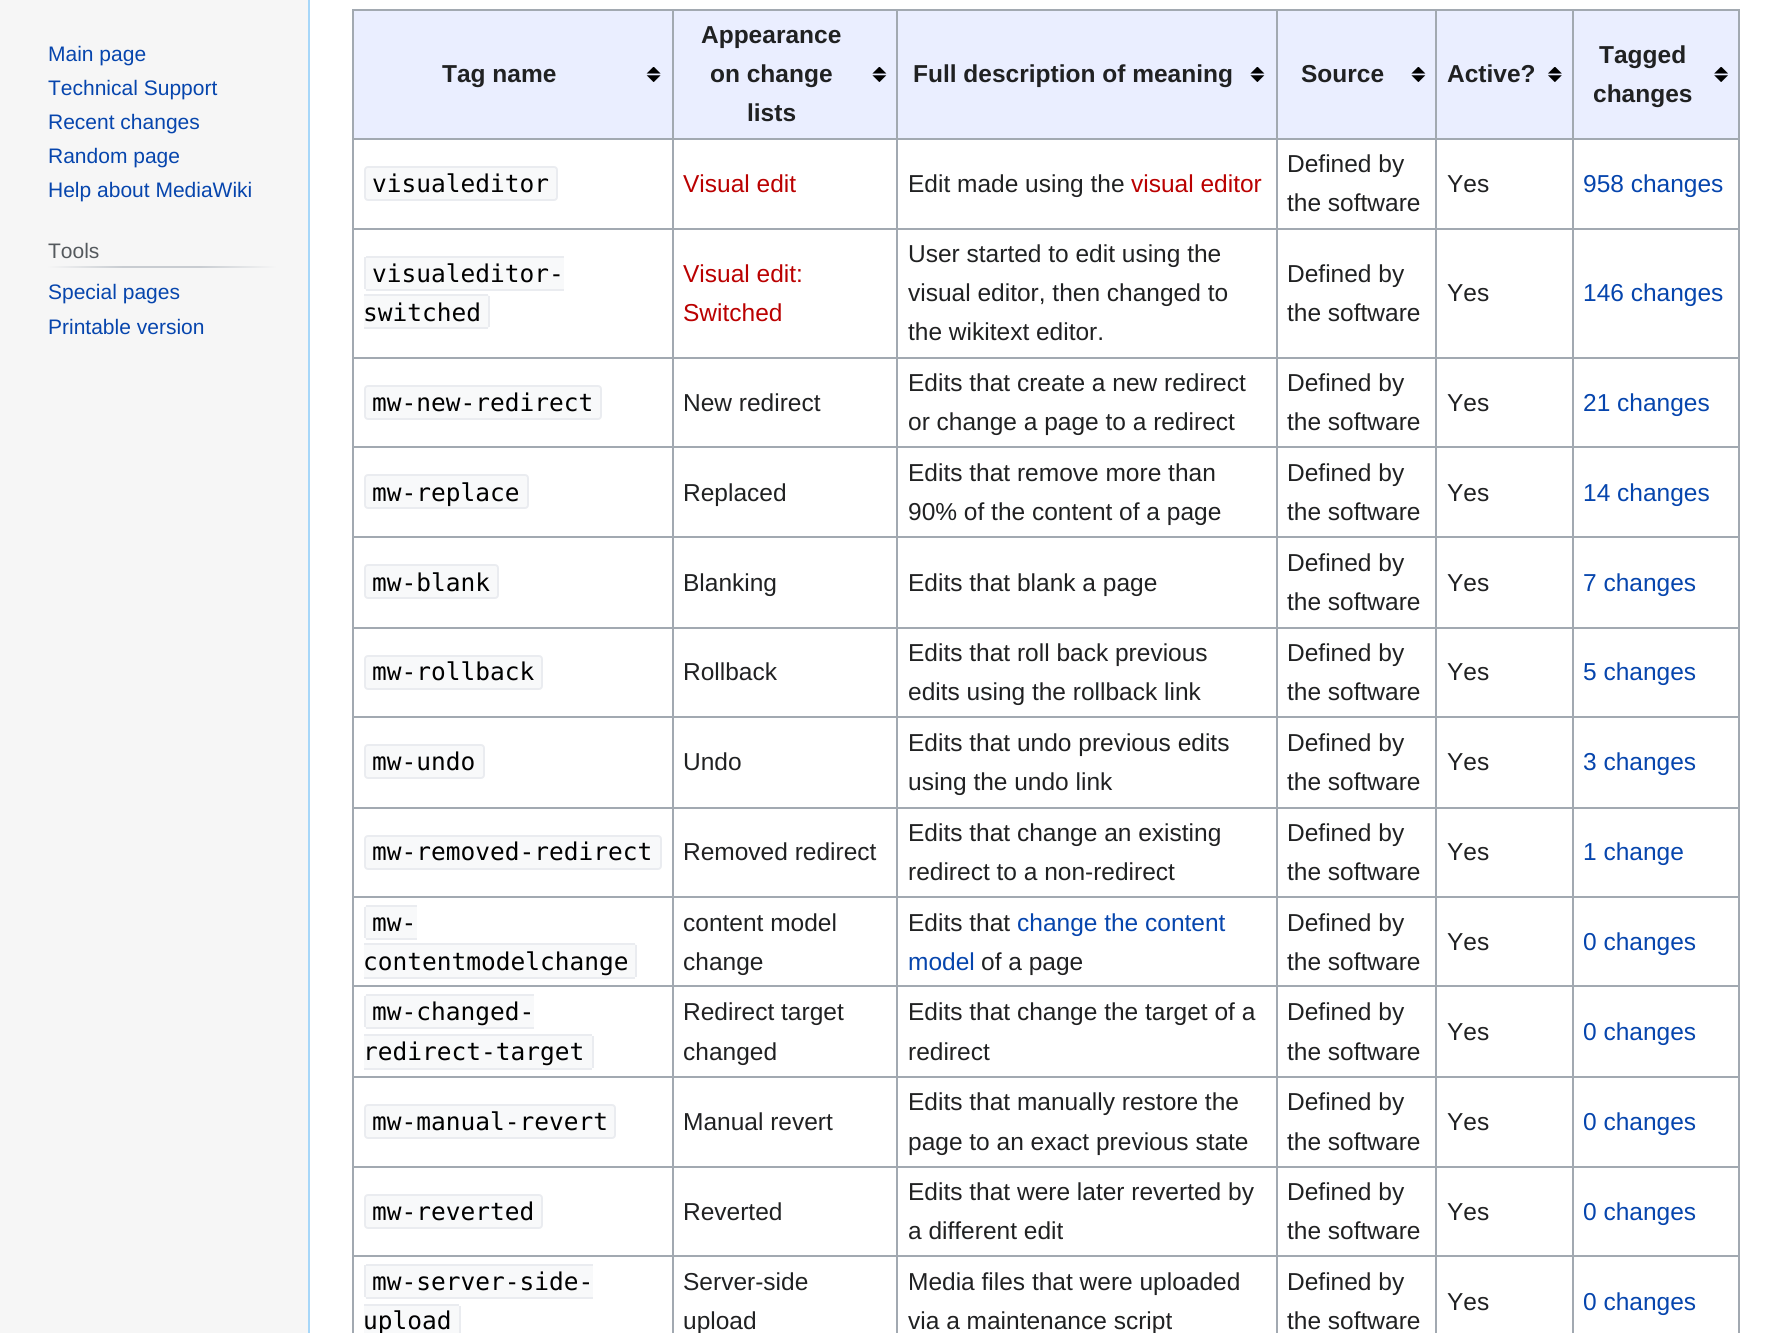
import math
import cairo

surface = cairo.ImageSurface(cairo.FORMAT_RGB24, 1780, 1333)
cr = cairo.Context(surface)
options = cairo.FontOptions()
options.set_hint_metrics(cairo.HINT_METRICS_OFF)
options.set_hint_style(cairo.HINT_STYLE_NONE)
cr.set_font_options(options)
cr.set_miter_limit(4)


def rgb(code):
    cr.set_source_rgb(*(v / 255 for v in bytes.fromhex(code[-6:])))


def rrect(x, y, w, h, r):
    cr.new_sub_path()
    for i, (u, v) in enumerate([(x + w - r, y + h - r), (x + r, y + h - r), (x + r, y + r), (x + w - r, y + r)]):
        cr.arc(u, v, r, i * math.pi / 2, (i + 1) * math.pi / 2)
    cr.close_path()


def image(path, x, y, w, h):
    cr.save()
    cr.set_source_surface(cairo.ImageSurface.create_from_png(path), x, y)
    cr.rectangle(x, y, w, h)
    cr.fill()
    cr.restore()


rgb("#f6f6f6")
cr.paint()
gradient = cairo.LinearGradient(47, 267, 277, 267)
gradient.add_color_stop_rgba(0, 0.965, 0.965, 0.965, 1)
gradient.add_color_stop_rgba(0.33, 0.784, 0.8, 0.82, 1)
gradient.add_color_stop_rgba(0.66, 0.784, 0.8, 0.82, 1)
gradient.add_color_stop_rgba(1, 0.965, 0.965, 0.965, 1)
cr.set_source(gradient)
cr.rectangle(47, 266, 230, 2)
cr.fill()
for x, y, w, h, color in [
    (310, 0, 1470, 1333, "#ffffff"),
    (308, 0, 2, 1333, "#a7d7f9"),
    (352, 9, 1388, 2, "#a2a9b1"),
    (1738, 9, 2, 1324, "#a2a9b1"),
    (352, 9, 2, 1324, "#a2a9b1"),
    (354, 11, 318, 127, "#eaeeff"),
]:
    rgb(color)
    cr.rectangle(x, y, w, h)
    cr.fill()
image("img/1.png", 646, 67, 15, 15)
cr.rectangle(674, 11, 222, 127)
cr.fill()
image("img/2.png", 872, 67, 15, 15)
for x, y, w, h, color in [
    (1572, 138, 168, 2, "#a2a9b1"),
    (1572, 228, 168, 2, "#a2a9b1"),
    (1572, 357, 168, 2, "#a2a9b1"),
    (1572, 446, 168, 2, "#a2a9b1"),
    (1572, 536, 168, 2, "#a2a9b1"),
    (1572, 627, 168, 2, "#a2a9b1"),
    (1572, 716, 168, 2, "#a2a9b1"),
    (1572, 807, 168, 2, "#a2a9b1"),
    (1572, 896, 168, 2, "#a2a9b1"),
    (1572, 985, 168, 2, "#a2a9b1"),
    (1572, 1076, 168, 2, "#a2a9b1"),
    (1572, 1166, 168, 2, "#a2a9b1"),
    (1572, 1255, 168, 2, "#a2a9b1"),
    (1572, 1255, 2, 78, "#a2a9b1"),
    (1435, 1255, 138, 2, "#a2a9b1"),
    (1572, 1166, 2, 91, "#a2a9b1"),
    (1435, 1166, 138, 2, "#a2a9b1"),
    (1572, 1076, 2, 91, "#a2a9b1"),
    (1435, 1076, 138, 2, "#a2a9b1"),
    (1572, 985, 2, 93, "#a2a9b1"),
    (1435, 985, 138, 2, "#a2a9b1"),
    (1572, 896, 2, 91, "#a2a9b1"),
    (1435, 896, 138, 2, "#a2a9b1"),
    (1572, 807, 2, 91, "#a2a9b1"),
    (1435, 807, 138, 2, "#a2a9b1"),
    (1572, 716, 2, 93, "#a2a9b1"),
    (1435, 716, 138, 2, "#a2a9b1"),
    (1572, 627, 2, 91, "#a2a9b1"),
    (1435, 627, 138, 2, "#a2a9b1"),
    (1572, 536, 2, 92, "#a2a9b1"),
    (1435, 536, 138, 2, "#a2a9b1"),
    (1572, 446, 2, 91, "#a2a9b1"),
    (1435, 446, 138, 2, "#a2a9b1"),
    (1572, 357, 2, 91, "#a2a9b1"),
    (1435, 357, 138, 2, "#a2a9b1"),
    (1572, 228, 2, 131, "#a2a9b1"),
    (1435, 228, 138, 2, "#a2a9b1"),
    (1572, 138, 2, 91, "#a2a9b1"),
    (1435, 138, 138, 2, "#a2a9b1"),
    (1435, 1255, 2, 78, "#a2a9b1"),
    (1276, 1255, 161, 2, "#a2a9b1"),
    (1435, 1166, 2, 91, "#a2a9b1"),
    (1276, 1166, 161, 2, "#a2a9b1"),
    (1435, 1076, 2, 91, "#a2a9b1"),
    (1276, 1076, 161, 2, "#a2a9b1"),
    (1435, 985, 2, 93, "#a2a9b1"),
    (1276, 985, 161, 2, "#a2a9b1"),
    (1435, 896, 2, 91, "#a2a9b1"),
    (1276, 896, 161, 2, "#a2a9b1"),
    (1435, 807, 2, 91, "#a2a9b1"),
    (1276, 807, 161, 2, "#a2a9b1"),
    (1435, 716, 2, 93, "#a2a9b1"),
    (1276, 716, 161, 2, "#a2a9b1"),
    (1435, 627, 2, 91, "#a2a9b1"),
    (1276, 627, 161, 2, "#a2a9b1"),
    (1435, 536, 2, 92, "#a2a9b1"),
    (1276, 536, 161, 2, "#a2a9b1"),
    (1435, 446, 2, 91, "#a2a9b1"),
    (1276, 446, 161, 2, "#a2a9b1"),
    (1435, 357, 2, 91, "#a2a9b1"),
    (1276, 357, 161, 2, "#a2a9b1"),
    (1435, 228, 2, 131, "#a2a9b1"),
    (1276, 228, 161, 2, "#a2a9b1"),
    (1435, 138, 2, 91, "#a2a9b1"),
    (1276, 138, 161, 2, "#a2a9b1"),
    (1276, 1255, 2, 78, "#a2a9b1"),
    (896, 1255, 382, 2, "#a2a9b1"),
    (1276, 1166, 2, 91, "#a2a9b1"),
    (896, 1166, 382, 2, "#a2a9b1"),
    (1276, 1076, 2, 91, "#a2a9b1"),
    (896, 1076, 382, 2, "#a2a9b1"),
    (1276, 985, 2, 93, "#a2a9b1"),
    (896, 985, 382, 2, "#a2a9b1"),
    (1276, 896, 2, 91, "#a2a9b1"),
    (896, 896, 382, 2, "#a2a9b1"),
    (1276, 807, 2, 91, "#a2a9b1"),
    (896, 807, 382, 2, "#a2a9b1"),
    (1276, 716, 2, 93, "#a2a9b1"),
    (896, 716, 382, 2, "#a2a9b1"),
    (1276, 627, 2, 91, "#a2a9b1"),
    (896, 627, 382, 2, "#a2a9b1"),
    (1276, 536, 2, 92, "#a2a9b1"),
    (896, 536, 382, 2, "#a2a9b1"),
    (1276, 446, 2, 91, "#a2a9b1"),
    (896, 446, 382, 2, "#a2a9b1"),
    (1276, 357, 2, 91, "#a2a9b1"),
    (896, 357, 382, 2, "#a2a9b1"),
    (1276, 228, 2, 131, "#a2a9b1"),
    (896, 228, 382, 2, "#a2a9b1"),
    (1276, 138, 2, 91, "#a2a9b1"),
    (896, 138, 382, 2, "#a2a9b1"),
    (896, 1255, 2, 78, "#a2a9b1"),
    (672, 1255, 226, 2, "#a2a9b1"),
    (896, 1166, 2, 91, "#a2a9b1"),
    (672, 1166, 226, 2, "#a2a9b1"),
    (896, 1076, 2, 91, "#a2a9b1"),
    (672, 1076, 226, 2, "#a2a9b1"),
    (896, 985, 2, 93, "#a2a9b1"),
    (672, 985, 226, 2, "#a2a9b1"),
    (896, 896, 2, 91, "#a2a9b1"),
    (672, 896, 226, 2, "#a2a9b1"),
    (896, 807, 2, 91, "#a2a9b1"),
    (672, 807, 226, 2, "#a2a9b1"),
    (896, 716, 2, 93, "#a2a9b1"),
    (672, 716, 226, 2, "#a2a9b1"),
    (896, 627, 2, 91, "#a2a9b1"),
    (672, 627, 226, 2, "#a2a9b1"),
    (896, 536, 2, 92, "#a2a9b1"),
    (672, 536, 226, 2, "#a2a9b1"),
    (896, 446, 2, 91, "#a2a9b1"),
    (672, 446, 226, 2, "#a2a9b1"),
    (896, 357, 2, 91, "#a2a9b1"),
    (672, 357, 226, 2, "#a2a9b1"),
    (896, 228, 2, 131, "#a2a9b1"),
    (672, 228, 226, 2, "#a2a9b1"),
    (896, 138, 2, 91, "#a2a9b1"),
    (672, 138, 226, 2, "#a2a9b1"),
    (672, 1255, 2, 78, "#a2a9b1"),
    (352, 1255, 322, 2, "#a2a9b1"),
    (672, 1166, 2, 91, "#a2a9b1"),
    (352, 1166, 322, 2, "#a2a9b1"),
    (672, 1076, 2, 91, "#a2a9b1"),
    (352, 1076, 322, 2, "#a2a9b1"),
    (672, 985, 2, 93, "#a2a9b1"),
    (352, 985, 322, 2, "#a2a9b1"),
    (672, 896, 2, 91, "#a2a9b1"),
    (352, 896, 322, 2, "#a2a9b1"),
    (672, 807, 2, 91, "#a2a9b1"),
    (352, 807, 322, 2, "#a2a9b1"),
    (672, 716, 2, 93, "#a2a9b1"),
    (352, 716, 322, 2, "#a2a9b1"),
    (672, 627, 2, 91, "#a2a9b1"),
    (352, 627, 322, 2, "#a2a9b1"),
    (672, 536, 2, 92, "#a2a9b1"),
    (352, 536, 322, 2, "#a2a9b1"),
    (672, 446, 2, 91, "#a2a9b1"),
    (352, 446, 322, 2, "#a2a9b1"),
    (672, 357, 2, 91, "#a2a9b1"),
    (352, 357, 322, 2, "#a2a9b1"),
    (672, 228, 2, 131, "#a2a9b1"),
    (352, 228, 322, 2, "#a2a9b1"),
    (672, 138, 2, 91, "#a2a9b1"),
    (352, 138, 322, 2, "#a2a9b1"),
    (672, 9, 2, 131, "#a2a9b1"),
    (898, 11, 378, 127, "#eaeeff"),
]:
    rgb(color)
    cr.rectangle(x, y, w, h)
    cr.fill()
image("img/2.png", 1250, 67, 15, 15)
rgb("#a2a9b1")
cr.rectangle(896, 9, 2, 131)
cr.fill()
rgb("#eaeeff")
cr.rectangle(1278, 11, 157, 127)
cr.fill()
image("img/2.png", 1411, 67, 15, 15)
rgb("#a2a9b1")
cr.rectangle(1276, 9, 2, 131)
cr.fill()
rgb("#eaeeff")
cr.rectangle(1437, 11, 135, 127)
cr.fill()
image("img/3.png", 1548, 67, 14, 15)
rgb("#a2a9b1")
cr.rectangle(1435, 9, 2, 131)
cr.fill()
rgb("#eaeeff")
cr.rectangle(1574, 11, 164, 127)
cr.fill()
image("img/4.png", 1714, 67, 14, 15)
rgb("#a2a9b1")
cr.rectangle(1572, 9, 2, 131)
cr.fill()
rgb("#f8f9fa")
rrect(365, 167, 192, 33, 3)
cr.fill_preserve()
rgb("#eaecf0")
cr.stroke()
rgb("#f8f9fa")
cr.new_path()
cr.move_to(368, 256)
cr.line_to(564, 256)
cr.line_to(564, 291)
cr.line_to(368, 291)
cr.curve_to(366, 291, 364, 289, 364, 287)
cr.line_to(364, 260)
cr.curve_to(364, 258, 366, 256, 368, 256)
cr.close_path()
cr.fill()
for x, y, w, h, color in [
    (366, 256, 198, 2, "#eaecf0"),
    (366, 289, 198, 2, "#eaecf0"),
    (364, 257, 2, 32, "#eaecf0"),
]:
    rgb(color)
    cr.rectangle(x, y, w, h)
    cr.fill()
rgb("#f8f9fa")
cr.new_path()
cr.move_to(364, 294)
cr.line_to(486, 294)
cr.curve_to(488, 294, 490, 296, 490, 298)
cr.line_to(490, 325)
cr.curve_to(490, 327, 488, 329, 486, 329)
cr.line_to(364, 329)
cr.close_path()
cr.fill()
for x, y, w, h, color in [
    (364, 294, 124, 2, "#eaecf0"),
    (488, 296, 2, 31, "#eaecf0"),
    (364, 327, 124, 2, "#eaecf0"),
]:
    rgb(color)
    cr.rectangle(x, y, w, h)
    cr.fill()
rgb("#f8f9fa")
rrect(365, 386, 236, 33, 3)
cr.fill_preserve()
rgb("#eaecf0")
cr.stroke()
rgb("#f8f9fa")
rrect(365, 475, 163, 33, 3)
cr.fill_preserve()
rgb("#eaecf0")
cr.stroke()
rgb("#f8f9fa")
rrect(365, 565, 133, 33, 3)
cr.fill_preserve()
rgb("#eaecf0")
cr.stroke()
rgb("#f8f9fa")
rrect(365, 656, 177, 33, 3)
cr.fill_preserve()
rgb("#eaecf0")
cr.stroke()
rgb("#f8f9fa")
rrect(365, 745, 119, 33, 3)
cr.fill_preserve()
rgb("#eaecf0")
cr.stroke()
rgb("#f8f9fa")
rrect(365, 836, 296, 33, 3)
cr.fill_preserve()
rgb("#eaecf0")
cr.stroke()
rgb("#f8f9fa")
cr.new_path()
cr.move_to(368, 905)
cr.line_to(417, 905)
cr.line_to(417, 940)
cr.line_to(368, 940)
cr.curve_to(366, 940, 364, 938, 364, 936)
cr.line_to(364, 909)
cr.curve_to(364, 907, 366, 905, 368, 905)
cr.close_path()
cr.fill()
for x, y, w, h, color in [
    (366, 905, 51, 2, "#eaecf0"),
    (366, 938, 51, 2, "#eaecf0"),
    (364, 907, 2, 31, "#eaecf0"),
]:
    rgb(color)
    cr.rectangle(x, y, w, h)
    cr.fill()
rgb("#f8f9fa")
cr.new_path()
cr.move_to(364, 943)
cr.line_to(633, 943)
cr.curve_to(635, 943, 637, 945, 637, 947)
cr.line_to(637, 974)
cr.curve_to(637, 976, 635, 978, 633, 978)
cr.line_to(364, 978)
cr.close_path()
cr.fill()
for x, y, w, h, color in [
    (364, 943, 271, 2, "#eaecf0"),
    (635, 945, 2, 32, "#eaecf0"),
    (364, 977, 271, 2, "#eaecf0"),
]:
    rgb(color)
    cr.rectangle(x, y, w, h)
    cr.fill()
rgb("#f8f9fa")
cr.new_path()
cr.move_to(368, 994)
cr.line_to(534, 994)
cr.line_to(534, 1029)
cr.line_to(368, 1029)
cr.curve_to(366, 1029, 364, 1027, 364, 1025)
cr.line_to(364, 998)
cr.curve_to(364, 996, 366, 994, 368, 994)
cr.close_path()
cr.fill()
for x, y, w, h, color in [
    (366, 994, 168, 2, "#eaecf0"),
    (366, 1027, 168, 2, "#eaecf0"),
    (364, 996, 2, 31, "#eaecf0"),
]:
    rgb(color)
    cr.rectangle(x, y, w, h)
    cr.fill()
rgb("#f8f9fa")
cr.new_path()
cr.move_to(364, 1034)
cr.line_to(589, 1034)
cr.curve_to(591, 1034, 593, 1036, 593, 1038)
cr.line_to(593, 1065)
cr.curve_to(593, 1067, 591, 1069, 589, 1069)
cr.line_to(364, 1069)
cr.close_path()
cr.fill()
for x, y, w, h, color in [
    (364, 1034, 228, 2, "#eaecf0"),
    (592, 1036, 2, 32, "#eaecf0"),
    (364, 1068, 228, 2, "#eaecf0"),
]:
    rgb(color)
    cr.rectangle(x, y, w, h)
    cr.fill()
rgb("#f8f9fa")
rrect(365, 1105, 250, 33, 3)
cr.fill_preserve()
rgb("#eaecf0")
cr.stroke()
rgb("#f8f9fa")
rrect(365, 1195, 177, 33, 3)
cr.fill_preserve()
rgb("#eaecf0")
cr.stroke()
rgb("#f8f9fa")
cr.new_path()
cr.move_to(368, 1264)
cr.line_to(593, 1264)
cr.line_to(593, 1299)
cr.line_to(368, 1299)
cr.curve_to(366, 1299, 364, 1297, 364, 1295)
cr.line_to(364, 1268)
cr.curve_to(364, 1266, 366, 1264, 368, 1264)
cr.close_path()
cr.fill()
for x, y, w, h, color in [
    (366, 1264, 227, 2, "#eaecf0"),
    (366, 1297, 227, 2, "#eaecf0"),
    (364, 1265, 2, 32, "#eaecf0"),
]:
    rgb(color)
    cr.rectangle(x, y, w, h)
    cr.fill()
rgb("#f8f9fa")
cr.new_path()
cr.move_to(364, 1304)
cr.line_to(456, 1304)
cr.curve_to(458, 1304, 460, 1306, 460, 1308)
cr.line_to(460, 1333)
cr.curve_to(460, 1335, 458, 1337, 456, 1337)
cr.line_to(364, 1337)
cr.close_path()
cr.fill()
rgb("#eaecf0")
cr.rectangle(364, 1304, 95, 2)
cr.fill()
cr.rectangle(459, 1306, 2, 27)
cr.fill()
cr.select_font_face("Liberation Sans")
cr.set_font_size(21)
rgb("#0645ad")
for x, y, s in [
    (48, 61, "Main page"),
    (48, 95, "Technical Support"),
    (48, 129, "Recent changes"),
    (48, 163, "Random page"),
    (48, 197, "Help about MediaWiki"),
]:
    cr.move_to(x, y)
    cr.show_text(s)
rgb("#54595d")
cr.move_to(48, 258)
cr.show_text("Tools")
rgb("#0645ad")
cr.move_to(48, 299)
cr.show_text("Special pages")
cr.move_to(48, 334)
cr.show_text("Printable version")
cr.select_font_face("Liberation Sans", cairo.FONT_SLANT_NORMAL, cairo.FONT_WEIGHT_BOLD)
cr.set_font_size(24.5)
rgb("#202122")
for x, y, s in [
    (442, 82, "Tag name"),
    (701, 43, "Appearance"),
    (710, 82, "on change"),
    (747, 121, "lists"),
    (913, 82, "Full description of meaning"),
    (1301, 82, "Source"),
    (1447, 82, "Active?"),
    (1599, 63, "Tagged"),
    (1593, 102, "changes"),
]:
    cr.move_to(x, y)
    cr.show_text(s)
cr.select_font_face("DejaVu Sans Mono")
rgb("#000000")
cr.move_to(372, 192)
cr.show_text("visualeditor")
cr.select_font_face("Liberation Sans")
rgb("#ba0000")
cr.move_to(683, 192)
cr.show_text("Visual edit")
rgb("#202122")
cr.move_to(908, 192)
cr.show_text("Edit made using the")
rgb("#ba0000")
cr.move_to(1131, 192)
cr.show_text("visual editor")
rgb("#202122")
for x, y, s in [
    (1287, 172, "Defined by"),
    (1287, 211, "the software"),
    (1447, 192, "Yes"),
]:
    cr.move_to(x, y)
    cr.show_text(s)
rgb("#0645ad")
cr.move_to(1583, 192)
cr.show_text("958 changes")
cr.select_font_face("DejaVu Sans Mono")
rgb("#000000")
cr.move_to(372, 282)
cr.show_text("visualeditor-")
cr.move_to(363, 321)
cr.show_text("switched")
cr.select_font_face("Liberation Sans")
rgb("#ba0000")
cr.move_to(683, 282)
cr.show_text("Visual edit:")
cr.move_to(683, 321)
cr.show_text("Switched")
rgb("#202122")
for x, y, s in [
    (908, 262, "User started to edit using the"),
    (908, 301, "visual editor, then changed to"),
    (908, 340, "the wikitext editor."),
    (1287, 282, "Defined by"),
    (1287, 321, "the software"),
    (1447, 301, "Yes"),
]:
    cr.move_to(x, y)
    cr.show_text(s)
rgb("#0645ad")
cr.move_to(1583, 301)
cr.show_text("146 changes")
cr.select_font_face("DejaVu Sans Mono")
rgb("#000000")
cr.move_to(372, 411)
cr.show_text("mw-new-redirect")
cr.select_font_face("Liberation Sans")
rgb("#202122")
for x, y, s in [
    (683, 411, "New redirect"),
    (908, 391, "Edits that create a new redirect"),
    (908, 430, "or change a page to a redirect"),
    (1287, 391, "Defined by"),
    (1287, 430, "the software"),
    (1447, 411, "Yes"),
]:
    cr.move_to(x, y)
    cr.show_text(s)
rgb("#0645ad")
cr.move_to(1583, 411)
cr.show_text("21 changes")
cr.select_font_face("DejaVu Sans Mono")
rgb("#000000")
cr.move_to(372, 501)
cr.show_text("mw-replace")
cr.select_font_face("Liberation Sans")
rgb("#202122")
for x, y, s in [
    (683, 501, "Replaced"),
    (908, 481, "Edits that remove more than"),
    (908, 520, "90% of the content of a page"),
    (1287, 481, "Defined by"),
    (1287, 520, "the software"),
    (1447, 501, "Yes"),
]:
    cr.move_to(x, y)
    cr.show_text(s)
rgb("#0645ad")
cr.move_to(1583, 501)
cr.show_text("14 changes")
cr.select_font_face("DejaVu Sans Mono")
rgb("#000000")
cr.move_to(372, 591)
cr.show_text("mw-blank")
cr.select_font_face("Liberation Sans")
rgb("#202122")
for x, y, s in [
    (683, 591, "Blanking"),
    (908, 591, "Edits that blank a page"),
    (1287, 571, "Defined by"),
    (1287, 610, "the software"),
    (1447, 591, "Yes"),
]:
    cr.move_to(x, y)
    cr.show_text(s)
rgb("#0645ad")
cr.move_to(1583, 591)
cr.show_text("7 changes")
cr.select_font_face("DejaVu Sans Mono")
rgb("#000000")
cr.move_to(372, 680)
cr.show_text("mw-rollback")
cr.select_font_face("Liberation Sans")
rgb("#202122")
for x, y, s in [
    (683, 680, "Rollback"),
    (908, 661, "Edits that roll back previous"),
    (908, 700, "edits using the rollback link"),
    (1287, 661, "Defined by"),
    (1287, 700, "the software"),
    (1447, 680, "Yes"),
]:
    cr.move_to(x, y)
    cr.show_text(s)
rgb("#0645ad")
cr.move_to(1583, 680)
cr.show_text("5 changes")
cr.select_font_face("DejaVu Sans Mono")
rgb("#000000")
cr.move_to(372, 770)
cr.show_text("mw-undo")
cr.select_font_face("Liberation Sans")
rgb("#202122")
for x, y, s in [
    (683, 770, "Undo"),
    (908, 751, "Edits that undo previous edits"),
    (908, 790, "using the undo link"),
    (1287, 751, "Defined by"),
    (1287, 790, "the software"),
    (1447, 770, "Yes"),
]:
    cr.move_to(x, y)
    cr.show_text(s)
rgb("#0645ad")
cr.move_to(1583, 770)
cr.show_text("3 changes")
cr.select_font_face("DejaVu Sans Mono")
rgb("#000000")
cr.move_to(372, 860)
cr.show_text("mw-removed-redirect")
cr.select_font_face("Liberation Sans")
rgb("#202122")
for x, y, s in [
    (683, 860, "Removed redirect"),
    (908, 841, "Edits that change an existing"),
    (908, 880, "redirect to a non-redirect"),
    (1287, 841, "Defined by"),
    (1287, 880, "the software"),
    (1447, 860, "Yes"),
]:
    cr.move_to(x, y)
    cr.show_text(s)
rgb("#0645ad")
cr.move_to(1583, 860)
cr.show_text("1 change")
cr.select_font_face("DejaVu Sans Mono")
rgb("#000000")
cr.move_to(372, 931)
cr.show_text("mw-")
cr.move_to(363, 970)
cr.show_text("contentmodelchange")
cr.select_font_face("Liberation Sans")
rgb("#202122")
for x, y, s in [
    (683, 931, "content model"),
    (683, 970, "change"),
    (908, 931, "Edits that"),
]:
    cr.move_to(x, y)
    cr.show_text(s)
rgb("#0645ad")
cr.move_to(1017, 931)
cr.show_text("change the content")
cr.move_to(908, 970)
cr.show_text("model")
rgb("#202122")
for x, y, s in [
    (981, 970, "of a page"),
    (1287, 931, "Defined by"),
    (1287, 970, "the software"),
    (1447, 950, "Yes"),
]:
    cr.move_to(x, y)
    cr.show_text(s)
rgb("#0645ad")
cr.move_to(1583, 950)
cr.show_text("0 changes")
cr.select_font_face("DejaVu Sans Mono")
rgb("#000000")
cr.move_to(372, 1020)
cr.show_text("mw-changed-")
cr.move_to(363, 1060)
cr.show_text("redirect-target")
cr.select_font_face("Liberation Sans")
rgb("#202122")
for x, y, s in [
    (683, 1020, "Redirect target"),
    (683, 1060, "changed"),
    (908, 1020, "Edits that change the target of a"),
    (908, 1060, "redirect"),
    (1287, 1020, "Defined by"),
    (1287, 1060, "the software"),
    (1447, 1040, "Yes"),
]:
    cr.move_to(x, y)
    cr.show_text(s)
rgb("#0645ad")
cr.move_to(1583, 1040)
cr.show_text("0 changes")
cr.select_font_face("DejaVu Sans Mono")
rgb("#000000")
cr.move_to(372, 1130)
cr.show_text("mw-manual-revert")
cr.select_font_face("Liberation Sans")
rgb("#202122")
for x, y, s in [
    (683, 1130, "Manual revert"),
    (908, 1110, "Edits that manually restore the"),
    (908, 1150, "page to an exact previous state"),
    (1287, 1110, "Defined by"),
    (1287, 1150, "the software"),
    (1447, 1130, "Yes"),
]:
    cr.move_to(x, y)
    cr.show_text(s)
rgb("#0645ad")
cr.move_to(1583, 1130)
cr.show_text("0 changes")
cr.select_font_face("DejaVu Sans Mono")
rgb("#000000")
cr.move_to(372, 1220)
cr.show_text("mw-reverted")
cr.select_font_face("Liberation Sans")
rgb("#202122")
for x, y, s in [
    (683, 1220, "Reverted"),
    (908, 1200, "Edits that were later reverted by"),
    (908, 1239, "a different edit"),
    (1287, 1200, "Defined by"),
    (1287, 1239, "the software"),
    (1447, 1220, "Yes"),
]:
    cr.move_to(x, y)
    cr.show_text(s)
rgb("#0645ad")
cr.move_to(1583, 1220)
cr.show_text("0 changes")
cr.select_font_face("DejaVu Sans Mono")
rgb("#000000")
cr.move_to(372, 1290)
cr.show_text("mw-server-side-")
cr.move_to(363, 1329)
cr.show_text("upload")
cr.select_font_face("Liberation Sans")
rgb("#202122")
for x, y, s in [
    (683, 1290, "Server-side"),
    (683, 1329, "upload"),
    (908, 1290, "Media files that were uploaded"),
    (908, 1329, "via a maintenance script"),
    (1287, 1290, "Defined by"),
    (1287, 1329, "the software"),
    (1447, 1310, "Yes"),
]:
    cr.move_to(x, y)
    cr.show_text(s)
rgb("#0645ad")
cr.move_to(1583, 1310)
cr.show_text("0 changes")
surface.write_to_png("page.png")
